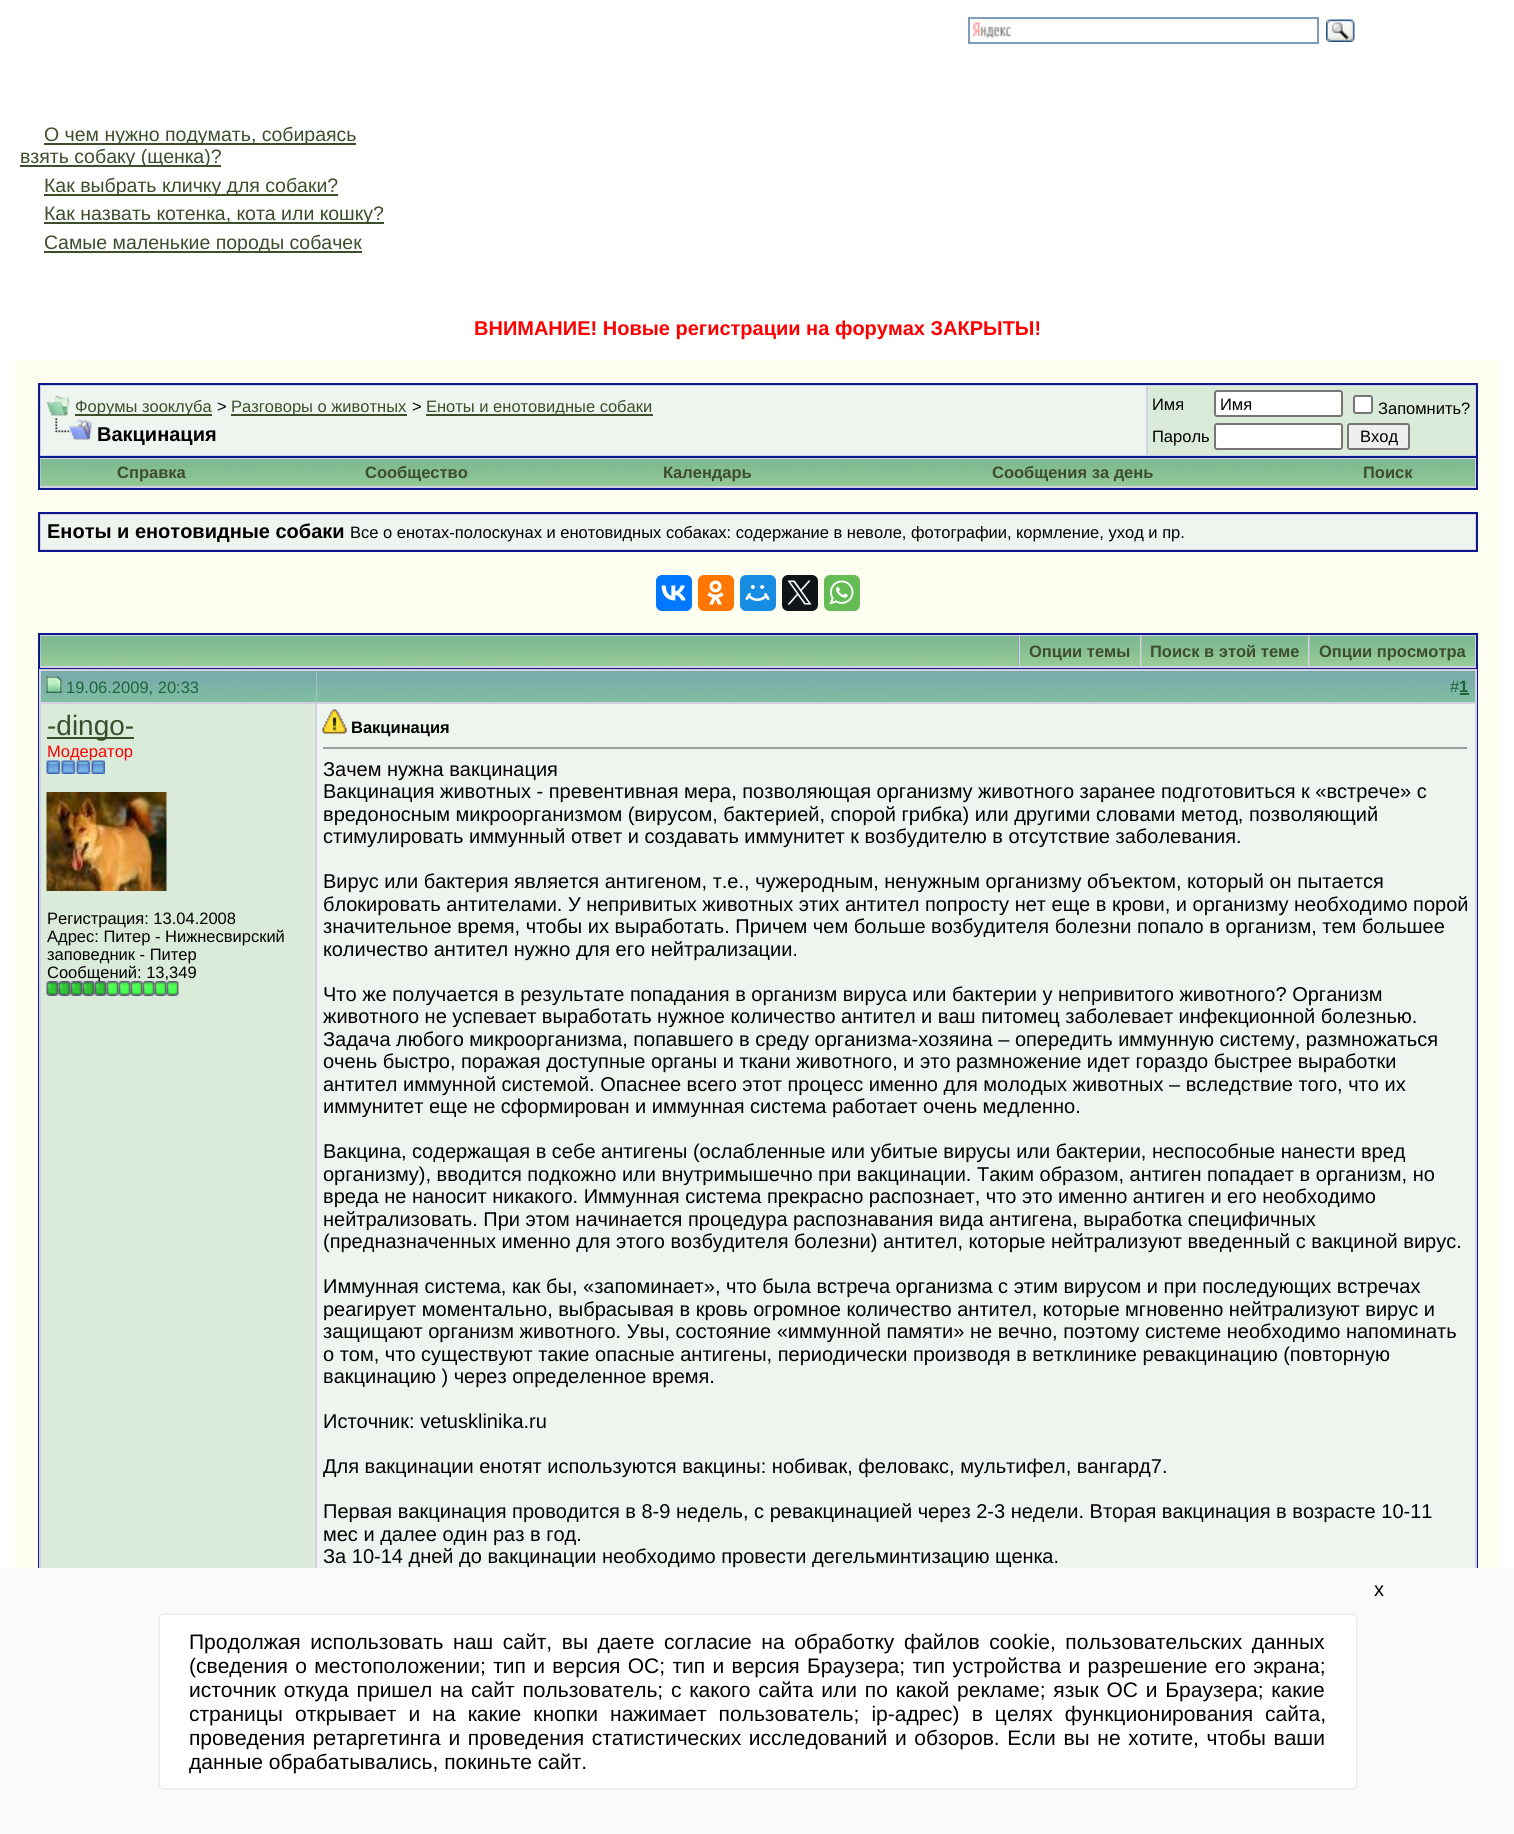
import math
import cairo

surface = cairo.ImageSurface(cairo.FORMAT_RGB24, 1514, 1834)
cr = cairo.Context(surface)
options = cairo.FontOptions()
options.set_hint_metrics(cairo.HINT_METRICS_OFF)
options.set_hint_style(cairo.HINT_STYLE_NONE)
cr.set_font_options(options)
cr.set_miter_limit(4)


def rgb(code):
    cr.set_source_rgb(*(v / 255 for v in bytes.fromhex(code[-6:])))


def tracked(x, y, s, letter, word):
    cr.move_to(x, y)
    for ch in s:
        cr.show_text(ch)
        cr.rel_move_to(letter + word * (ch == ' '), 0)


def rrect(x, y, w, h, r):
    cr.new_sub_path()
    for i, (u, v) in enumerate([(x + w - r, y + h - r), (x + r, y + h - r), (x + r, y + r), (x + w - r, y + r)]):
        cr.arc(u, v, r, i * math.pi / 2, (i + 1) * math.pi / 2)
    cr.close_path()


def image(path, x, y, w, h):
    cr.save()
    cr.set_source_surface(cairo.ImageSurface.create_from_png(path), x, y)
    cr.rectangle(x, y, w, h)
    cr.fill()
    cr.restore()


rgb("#ffffff")
cr.paint()
image("img/1.png", 972, 22, 39, 17)
cr.rectangle(969, 18, 349, 25)
rgb("#7f9db9")
cr.stroke()
image("img/2.png", 1326, 19, 29, 23)
for x, y, w, h, color in [
    (44, 143, 312, 2, "#3d4e2d"),
    (20, 165, 201, 2, "#3d4e2d"),
    (44, 194, 294, 2, "#3d4e2d"),
    (44, 222, 340, 2, "#3d4e2d"),
    (44, 251, 318, 2, "#3d4e2d"),
    (15, 360, 1485, 1208, "#fffff1"),
]:
    rgb(color)
    cr.rectangle(x, y, w, h)
    cr.fill()
rgb("#d1d1e1")
cr.rectangle(39, 384, 1438, 73)
cr.fill_preserve()
rgb("#0b198c")
cr.stroke()
rgb("#eef4ee")
cr.rectangle(41, 386, 1105, 69)
cr.fill()
image("img/3.png", 46, 395, 23, 21)
for x, y, w, h, color in [
    (75, 414, 137, 2, "#3d4e2d"),
    (231, 414, 176, 2, "#3d4e2d"),
    (426, 414, 227, 2, "#3d4e2d"),
]:
    rgb(color)
    cr.rectangle(x, y, w, h)
    cr.fill()
image("img/4.png", 55, 418, 37, 22)
rgb("#daebda")
cr.rectangle(1148, 386, 327, 69)
cr.fill()
rgb("#ffffff")
rrect(1215, 391, 127, 25, 2)
cr.fill_preserve()
rgb("#767676")
cr.stroke()
rgb("#ffffff")
rrect(1354, 396, 18, 17, 2)
cr.fill_preserve()
rgb("#767676")
cr.stroke()
rgb("#ffffff")
rrect(1215, 424, 127, 25, 2)
cr.fill_preserve()
rgb("#767676")
cr.stroke()
rgb("#efefef")
rrect(1348, 424, 61, 25, 2)
cr.fill_preserve()
rgb("#767676")
cr.stroke()
for x, y, w, h, color in [
    (40, 458, 1436, 30, "#d1d1e1"),
    (1476, 458, 2, 31, "#0b198c"),
    (38, 488, 1440, 2, "#0b198c"),
    (38, 458, 2, 31, "#0b198c"),
    (262, 459, 1, 27, "#86c094"),
]:
    rgb(color)
    cr.rectangle(x, y, w, h)
    cr.fill()
image("img/5.png", 40, 459, 223, 27)
cr.rectangle(571, 459, 1, 27)
cr.fill()
image("img/6.png", 263, 459, 309, 27)
image("img/7.png", 572, 459, 271, 27)
image("img/8.png", 843, 459, 459, 27)
cr.rectangle(1474, 459, 1, 27)
cr.fill()
image("img/9.png", 1302, 459, 173, 27)
rgb("#d1d1e1")
cr.rectangle(39, 513, 1438, 38)
cr.fill_preserve()
rgb("#0b198c")
cr.stroke()
rgb("#eef4ee")
cr.rectangle(41, 515, 1434, 34)
cr.fill()
rgb("#0077ff")
rrect(656, 575, 36, 36, 6)
cr.fill()
image("img/10.png", 661, 585, 25, 16)
rgb("#ff7700")
rrect(698, 575, 36, 36, 6)
cr.fill()
image("img/11.png", 707, 580, 17, 25)
rgb("#168de2")
rrect(740, 575, 36, 36, 6)
cr.fill()
image("img/12.png", 745, 585, 25, 16)
rgb("#0f1419")
rrect(782, 575, 36, 36, 6)
cr.fill()
image("img/13.png", 787, 580, 25, 25)
rgb("#65bc54")
rrect(824, 575, 36, 36, 6)
cr.fill()
image("img/14.png", 829, 580, 25, 25)
for x, y, w, h, color in [
    (40, 635, 1436, 33, "#d1d1e1"),
    (38, 633, 1440, 2, "#0b198c"),
    (1476, 633, 2, 35, "#0b198c"),
    (38, 633, 2, 35, "#0b198c"),
    (1018, 636, 1, 30, "#869bbf"),
]:
    rgb(color)
    cr.rectangle(x, y, w, h)
    cr.fill()
image("img/15.png", 40, 636, 979, 30)
image("img/16.png", 1020, 636, 120, 30)
image("img/17.png", 1141, 636, 167, 30)
rgb("#86c094")
cr.rectangle(1474, 636, 1, 30)
cr.fill()
image("img/18.png", 1309, 636, 166, 30)
cr.rectangle(39, 669, 1438, 946)
rgb("#0b198c")
cr.stroke()
image("img/19.png", 41, 671, 276, 31)
for x, y, w, h, color in [
    (39, 669, 278, 2, "#d1d1e1"),
    (39, 702, 278, 2, "#d1d1e1"),
    (39, 669, 2, 905, "#d1d1e1"),
]:
    rgb(color)
    cr.rectangle(x, y, w, h)
    cr.fill()
image("img/20.png", 46, 676, 16, 17)
image("img/21.png", 316, 670, 1159, 34)
for x, y, w, h, color in [
    (317, 669, 1159, 2, "#d1d1e1"),
    (1475, 669, 2, 905, "#d1d1e1"),
    (317, 702, 1159, 2, "#d1d1e1"),
    (1460, 693, 9, 2, "#1a653c"),
    (41, 704, 274, 864, "#daebda"),
    (315, 704, 2, 870, "#d1d1e1"),
    (47, 737, 87, 2, "#3d4e2d"),
]:
    rgb(color)
    cr.rectangle(x, y, w, h)
    cr.fill()
image("img/23.png", 46, 792, 121, 99)
rgb("#eef4ee")
cr.rectangle(317, 704, 1158, 864)
cr.fill()
image("img/28.png", 322, 709, 25, 25)
for x, y, w, h, color in [
    (323, 747, 1146, 2, "#9f9f9f"),
    (1467, 747, 2, 2, "#eeeeee"),
    (0, 1568, 1514, 266, "#fafafa"),
]:
    rgb(color)
    cr.rectangle(x, y, w, h)
    cr.fill()
rgb("#ffffff")
rrect(159, 1614, 1198, 175, 5)
cr.fill_preserve()
rgb("#eeeeee")
cr.stroke()
cr.select_font_face("Liberation Sans")
cr.set_font_size(19.5)
rgb("#3d4e2d")
for x, y, s in [
    (44, 141, "О чем нужно подумать, собираясь"),
    (20, 163, "взять собаку (щенка)?"),
    (44, 192, "Как выбрать кличку для собаки?"),
    (44, 220, "Как назвать котенка, кота или кошку?"),
    (44, 249, "Самые маленькие породы собачек"),
]:
    cr.move_to(x, y)
    cr.show_text(s)
cr.select_font_face("Liberation Sans", cairo.FONT_SLANT_NORMAL, cairo.FONT_WEIGHT_BOLD)
cr.set_font_size(20)
rgb("#ff0000")
cr.move_to(474, 335)
cr.show_text("ВНИМАНИЕ! Новые регистрации на форумах ЗАКРЫТЫ!")
cr.select_font_face("Liberation Sans")
cr.set_font_size(16.5)
rgb("#3d4e2d")
cr.move_to(75, 412)
cr.show_text("Форумы зооклуба")
rgb("#000000")
cr.move_to(217, 412)
cr.show_text(">")
rgb("#3d4e2d")
cr.move_to(231, 412)
cr.show_text("Разговоры о животных")
rgb("#000000")
cr.move_to(412, 412)
cr.show_text(">")
rgb("#3d4e2d")
cr.move_to(426, 412)
cr.show_text("Еноты и енотовидные собаки")
cr.select_font_face("Liberation Sans", cairo.FONT_SLANT_NORMAL, cairo.FONT_WEIGHT_BOLD)
cr.set_font_size(20)
rgb("#000000")
cr.move_to(97, 441)
cr.show_text("Вакцинация")
cr.select_font_face("Liberation Sans")
cr.set_font_size(16.5)
for x, y, s in [
    (1152, 410, "Имя"),
    (1220, 410, "Имя"),
    (1378, 414, "Запомнить?"),
    (1152, 442, "Пароль"),
    (1360, 442, "Вход"),
]:
    cr.move_to(x, y)
    cr.show_text(s)
cr.select_font_face("Liberation Sans", cairo.FONT_SLANT_NORMAL, cairo.FONT_WEIGHT_BOLD)
rgb("#3d4e2d")
for x, y, s in [
    (117, 478, "Справка"),
    (365, 478, "Сообщество"),
    (663, 478, "Календарь"),
    (992, 478, "Сообщения за день"),
    (1363, 478, "Поиск"),
]:
    cr.move_to(x, y)
    cr.show_text(s)
cr.set_font_size(20)
rgb("#000000")
cr.move_to(47, 538)
cr.show_text("Еноты и енотовидные собаки")
cr.select_font_face("Liberation Sans")
cr.set_font_size(16.5)
cr.move_to(350, 538)
cr.show_text("Все о енотах-полоскунах и енотовидных собаках: содержание в неволе, фотографии, кормление, уход и пр.")
cr.select_font_face("Liberation Sans", cairo.FONT_SLANT_NORMAL, cairo.FONT_WEIGHT_BOLD)
rgb("#3d4e2d")
for x, y, s in [
    (1029, 657, "Опции темы"),
    (1150, 657, "Поиск в этой теме"),
    (1319, 657, "Опции просмотра"),
]:
    cr.move_to(x, y)
    cr.show_text(s)
cr.select_font_face("Liberation Sans")
rgb("#1a653c")
cr.move_to(66, 693)
cr.show_text("19.06.2009, 20:33")
cr.move_to(1450, 692)
cr.show_text("#")
cr.select_font_face("Liberation Sans", cairo.FONT_SLANT_NORMAL, cairo.FONT_WEIGHT_BOLD)
cr.move_to(1459, 692)
cr.show_text("1")
cr.select_font_face("Liberation Sans")
cr.set_font_size(28)
rgb("#3d4e2d")
cr.move_to(47, 735)
cr.show_text("-dingo-")
cr.set_font_size(16.5)
rgb("#ff0000")
cr.move_to(47, 757)
cr.show_text("Модератор")
image("img/22.png", 46, 760, 59, 14)
rgb("#000000")
for x, y, s in [
    (47, 924, "Регистрация: 13.04.2008"),
    (47, 942, "Адрес: Питер - Нижнесвирский"),
    (47, 960, "заповедник - Питер"),
    (47, 978, "Сообщений: 13,349"),
]:
    cr.move_to(x, y)
    cr.show_text(s)
image("img/24.png", 46, 981, 13, 15)
image("img/25.png", 58, 981, 13, 15)
image("img/25.png", 70, 981, 13, 15)
image("img/25.png", 82, 981, 13, 15)
image("img/25.png", 94, 981, 13, 15)
image("img/26.png", 106, 981, 13, 15)
image("img/27.png", 118, 981, 13, 15)
image("img/27.png", 130, 981, 13, 15)
image("img/27.png", 142, 981, 13, 15)
image("img/27.png", 154, 981, 13, 15)
image("img/27.png", 166, 981, 13, 15)
cr.select_font_face("Liberation Sans", cairo.FONT_SLANT_NORMAL, cairo.FONT_WEIGHT_BOLD)
cr.move_to(351, 733)
cr.show_text("Вакцинация")
cr.select_font_face("Liberation Sans")
cr.set_font_size(20)
for x, y, s in [
    (323, 776, "Зачем нужна вакцинация"),
    (323, 798, "Вакцинация животных - превентивная мера, позволяющая организму животного заранее подготовиться к «встрече» с"),
    (323, 821, "вредоносным микроорганизмом (вирусом, бактерией, спорой грибка) или другими словами метод, позволяющий"),
    (323, 843, "стимулировать иммунный ответ и создавать иммунитет к возбудителю в отсутствие заболевания."),
    (323, 888, "Вирус или бактерия является антигеном, т.е., чужеродным, ненужным организму объектом, который он пытается"),
    (323, 911, "блокировать антителами. У непривитых животных этих антител попросту нет еще в крови, и организму необходимо порой"),
    (323, 933, "значительное время, чтобы их выработать. Причем чем больше возбудителя болезни попало в организм, тем большее"),
    (323, 956, "количество антител нужно для его нейтрализации."),
    (323, 1001, "Что же получается в результате попадания в организм вируса или бактерии у непривитого животного? Организм"),
    (323, 1023, "животного не успевает выработать нужное количество антител и ваш питомец заболевает инфекционной болезнью."),
    (323, 1046, "Задача любого микроорганизма, попавшего в среду организма-хозяина – опередить иммунную систему, размножаться"),
    (323, 1068, "очень быстро, поражая доступные органы и ткани животного, и это размножение идет гораздо быстрее выработки"),
    (323, 1091, "антител иммунной системой. Опаснее всего этот процесс именно для молодых животных – вследствие того, что их"),
    (323, 1113, "иммунитет еще не сформирован и иммунная система работает очень медленно."),
    (323, 1158, "Вакцина, содержащая в себе антигены (ослабленные или убитые вирусы или бактерии, неспособные нанести вред"),
    (323, 1181, "организму), вводится подкожно или внутримышечно при вакцинации. Таким образом, антиген попадает в организм, но"),
    (323, 1203, "вреда не наносит никакого. Иммунная система прекрасно распознает, что это именно антиген и его необходимо"),
    (323, 1226, "нейтрализовать. При этом начинается процедура распознавания вида антигена, выработка специфичных"),
    (323, 1248, "(предназначенных именно для этого возбудителя болезни) антител, которые нейтрализуют введенный с вакциной вирус."),
    (323, 1293, "Иммунная система, как бы, «запоминает», что была встреча организма с этим вирусом и при последующих встречах"),
    (323, 1316, "реагирует моментально, выбрасывая в кровь огромное количество антител, которые мгновенно нейтрализуют вирус и"),
    (323, 1338, "защищают организм животного. Увы, состояние «иммунной памяти» не вечно, поэтому системе необходимо напоминать"),
    (323, 1361, "о том, что существуют такие опасные антигены, периодически производя в ветклинике ревакцинацию (повторную"),
    (323, 1383, "вакцинацию ) через определенное время."),
    (323, 1428, "Источник: vetusklinika.ru"),
    (323, 1473, "Для вакцинации енотят используются вакцины: нобивак, феловакс, мультифел, вангард7."),
    (323, 1518, "Первая вакцинация проводится в 8-9 недель, с ревакцинацией через 2-3 недели. Вторая вакцинация в возрасте 10-11"),
    (323, 1541, "мес и далее один раз в год."),
    (323, 1563, "За 10-14 дней до вакцинации необходимо провести дегельминтизацию щенка."),
    (1374, 1596, "x"),
]:
    cr.move_to(x, y)
    cr.show_text(s)
cr.set_font_size(21)
tracked(189, 1649, "Продолжая использовать наш сайт, вы даете согласие на обработку файлов cookie, пользовательских данных", 0, 3.75)
tracked(189, 1673, "(сведения о местоположении; тип и версия ОС; тип и версия Браузера; тип устройства и разрешение его экрана;", 0, 1.5)
tracked(189, 1697, "источник откуда пришел на сайт пользователь; с какого сайта или по какой рекламе; язык ОС и Браузера; какие", 0, 2)
tracked(189, 1721, "страницы открывает и на какие кнопки нажимает пользователь; ip-адрес) в целях функционирования сайта,", 0, 6.25)
tracked(189, 1745, "проведения ретаргетинга и проведения статистических исследований и обзоров. Если вы не хотите, чтобы ваши", 0, 1.8)
cr.move_to(189, 1769)
cr.show_text("данные обрабатывались, покиньте сайт.")
surface.write_to_png("page.png")
